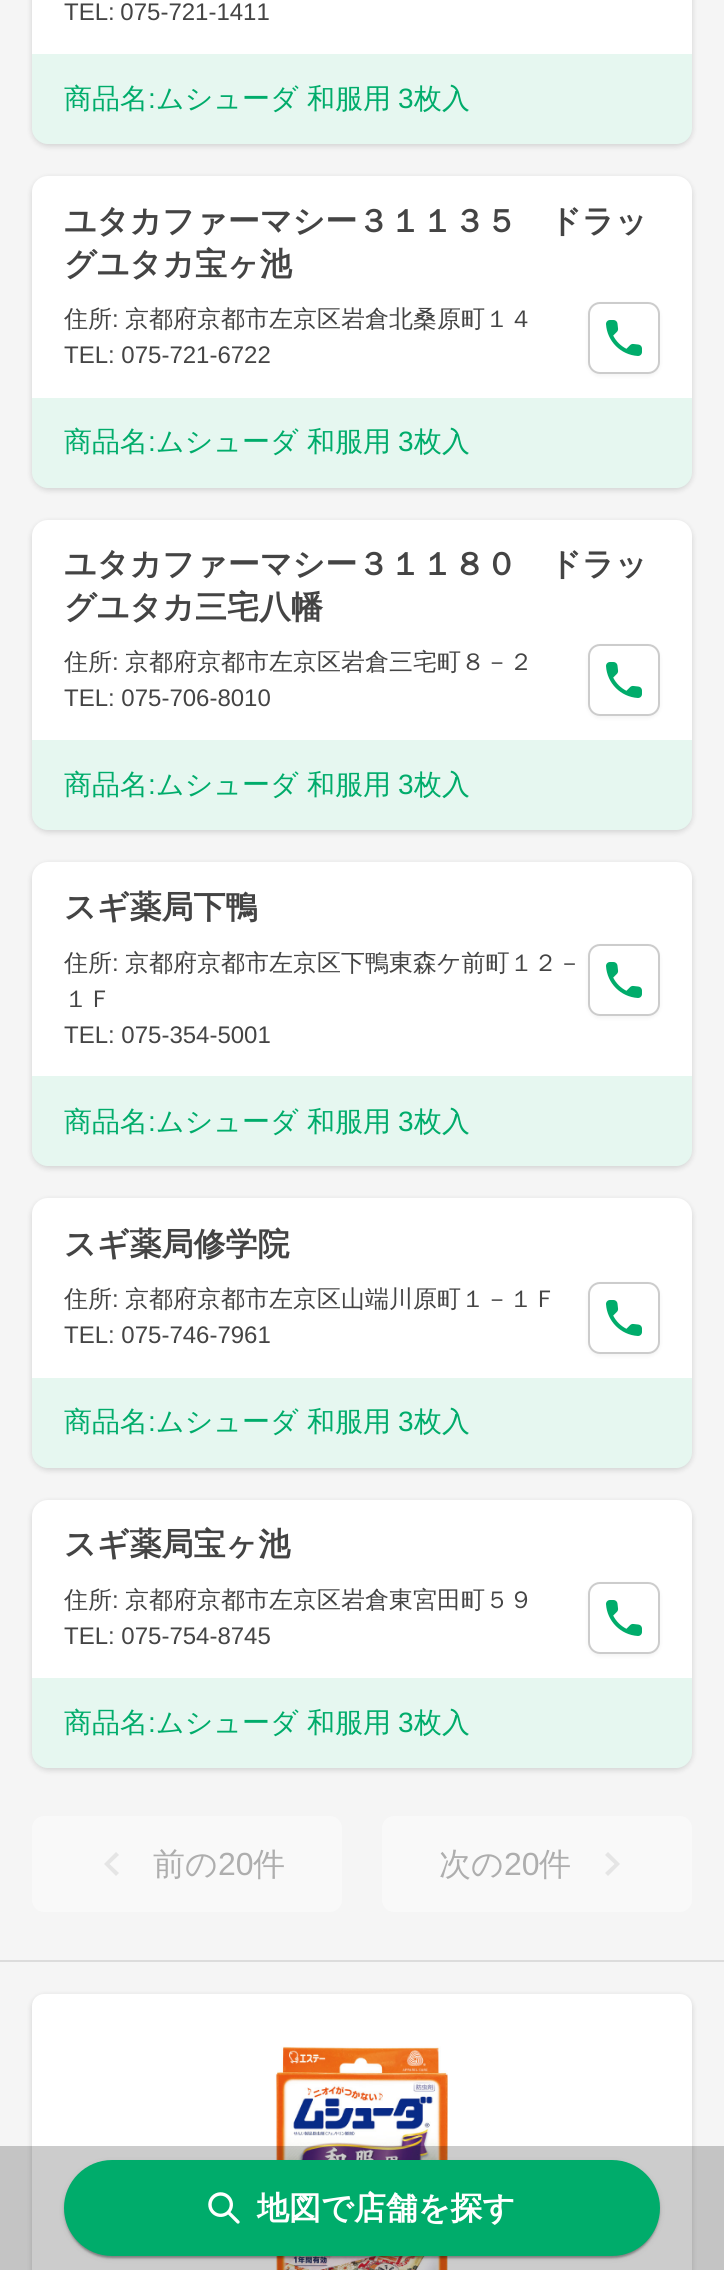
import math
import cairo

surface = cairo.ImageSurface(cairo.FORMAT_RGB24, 724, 2270)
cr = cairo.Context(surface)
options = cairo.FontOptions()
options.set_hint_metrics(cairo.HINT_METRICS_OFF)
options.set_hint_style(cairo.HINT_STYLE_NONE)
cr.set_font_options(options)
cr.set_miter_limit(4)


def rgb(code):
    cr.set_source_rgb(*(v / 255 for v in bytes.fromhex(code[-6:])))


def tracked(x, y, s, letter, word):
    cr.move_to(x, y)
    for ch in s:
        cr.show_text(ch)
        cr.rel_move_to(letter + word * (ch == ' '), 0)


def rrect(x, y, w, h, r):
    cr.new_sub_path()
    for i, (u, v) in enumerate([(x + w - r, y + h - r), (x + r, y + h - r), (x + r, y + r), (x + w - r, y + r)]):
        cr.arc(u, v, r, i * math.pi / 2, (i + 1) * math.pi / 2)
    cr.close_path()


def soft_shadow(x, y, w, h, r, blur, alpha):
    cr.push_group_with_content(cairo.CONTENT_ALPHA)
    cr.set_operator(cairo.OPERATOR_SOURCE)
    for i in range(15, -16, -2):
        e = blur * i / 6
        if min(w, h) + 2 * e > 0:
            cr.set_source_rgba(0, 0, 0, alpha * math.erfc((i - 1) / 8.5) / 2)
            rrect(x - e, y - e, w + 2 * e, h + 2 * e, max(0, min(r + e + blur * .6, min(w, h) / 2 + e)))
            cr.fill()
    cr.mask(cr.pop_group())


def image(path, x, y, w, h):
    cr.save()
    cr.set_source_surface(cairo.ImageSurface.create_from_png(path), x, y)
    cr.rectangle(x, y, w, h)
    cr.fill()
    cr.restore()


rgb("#f5f5f5")
cr.paint()
rgb("#000000")
soft_shadow(32, -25, 660, 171, 16, 3, 0.15)
rgb("#ffffff")
rrect(32, -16, 660, 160, 16)
cr.fill()
cr.set_source_rgba(0, 0.675, 0.42, 0.1)
cr.new_path()
cr.move_to(32, 54)
cr.line_to(692, 54)
cr.line_to(692, 128)
cr.curve_to(692, 137, 685, 144, 676, 144)
cr.line_to(48, 144)
cr.curve_to(39, 144, 32, 137, 32, 128)
cr.close_path()
cr.fill()
rgb("#000000")
soft_shadow(32, 178, 660, 312, 16, 3, 0.15)
rgb("#ffffff")
rrect(32, 176, 660, 312, 16)
cr.fill()
rgb("#000000")
soft_shadow(588, 304, 72, 72, 12, 2, 0.05)
rgb("#ffffff")
rrect(589, 303, 70, 70, 11)
cr.fill_preserve()
rgb("#cccccc")
cr.stroke()
image("img/1.png", 606, 320, 36, 36)
cr.set_source_rgba(0, 0.675, 0.42, 0.1)
cr.new_path()
cr.move_to(32, 398)
cr.line_to(692, 398)
cr.line_to(692, 472)
cr.curve_to(692, 481, 685, 488, 676, 488)
cr.line_to(48, 488)
cr.curve_to(39, 488, 32, 481, 32, 472)
cr.close_path()
cr.fill()
rgb("#000000")
soft_shadow(32, 522, 660, 310, 16, 3, 0.15)
rgb("#ffffff")
rrect(32, 520, 660, 310, 16)
cr.fill()
rgb("#000000")
soft_shadow(588, 646, 72, 72, 12, 2, 0.05)
rgb("#ffffff")
rrect(589, 645, 70, 70, 11)
cr.fill_preserve()
rgb("#cccccc")
cr.stroke()
image("img/1.png", 606, 662, 36, 36)
cr.set_source_rgba(0, 0.675, 0.42, 0.1)
cr.new_path()
cr.move_to(32, 740)
cr.line_to(692, 740)
cr.line_to(692, 814)
cr.curve_to(692, 823, 685, 830, 676, 830)
cr.line_to(48, 830)
cr.curve_to(39, 830, 32, 823, 32, 814)
cr.close_path()
cr.fill()
rgb("#000000")
soft_shadow(32, 864, 660, 304, 16, 3, 0.15)
rgb("#ffffff")
rrect(32, 862, 660, 304, 16)
cr.fill()
rgb("#000000")
soft_shadow(588, 946, 72, 72, 12, 2, 0.05)
rgb("#ffffff")
rrect(589, 945, 70, 70, 11)
cr.fill_preserve()
rgb("#cccccc")
cr.stroke()
image("img/1.png", 606, 962, 36, 36)
cr.set_source_rgba(0, 0.675, 0.42, 0.1)
cr.new_path()
cr.move_to(32, 1076)
cr.line_to(692, 1076)
cr.line_to(692, 1150)
cr.curve_to(692, 1159, 685, 1166, 676, 1166)
cr.line_to(48, 1166)
cr.curve_to(39, 1166, 32, 1159, 32, 1150)
cr.close_path()
cr.fill()
rgb("#000000")
soft_shadow(32, 1200, 660, 270, 16, 3, 0.15)
rgb("#ffffff")
rrect(32, 1198, 660, 270, 16)
cr.fill()
rgb("#000000")
soft_shadow(588, 1284, 72, 72, 12, 2, 0.05)
rgb("#ffffff")
rrect(589, 1283, 70, 70, 11)
cr.fill_preserve()
rgb("#cccccc")
cr.stroke()
image("img/1.png", 606, 1300, 36, 36)
cr.set_source_rgba(0, 0.675, 0.42, 0.1)
cr.new_path()
cr.move_to(32, 1378)
cr.line_to(692, 1378)
cr.line_to(692, 1452)
cr.curve_to(692, 1461, 685, 1468, 676, 1468)
cr.line_to(48, 1468)
cr.curve_to(39, 1468, 32, 1461, 32, 1452)
cr.close_path()
cr.fill()
rgb("#000000")
soft_shadow(32, 1502, 660, 268, 16, 3, 0.15)
rgb("#ffffff")
rrect(32, 1500, 660, 268, 16)
cr.fill()
rgb("#000000")
soft_shadow(588, 1584, 72, 72, 12, 2, 0.05)
rgb("#ffffff")
rrect(589, 1583, 70, 70, 11)
cr.fill_preserve()
rgb("#cccccc")
cr.stroke()
image("img/1.png", 606, 1600, 36, 36)
cr.set_source_rgba(0, 0.675, 0.42, 0.1)
cr.new_path()
cr.move_to(32, 1678)
cr.line_to(692, 1678)
cr.line_to(692, 1752)
cr.curve_to(692, 1761, 685, 1768, 676, 1768)
cr.line_to(48, 1768)
cr.curve_to(39, 1768, 32, 1761, 32, 1752)
cr.close_path()
cr.fill()
rgb("#f9f9f9")
rrect(32, 1816, 310, 96, 12)
cr.fill()
rgb("#e5e5e5")
cr.new_path()
cr.move_to(119, 1855)
cr.line_to(116, 1852)
cr.line_to(104, 1864)
cr.line_to(116, 1876)
cr.line_to(119, 1873)
cr.line_to(109.5, 1864)
cr.close_path()
cr.fill()
rgb("#f9f9f9")
rrect(382, 1816, 310, 96, 12)
cr.fill()
rgb("#e5e5e5")
cr.new_path()
cr.move_to(608, 1852)
cr.line_to(605, 1855)
cr.line_to(614.5, 1864)
cr.line_to(605, 1873)
cr.line_to(608, 1876)
cr.line_to(620, 1864)
cr.close_path()
cr.fill()
rgb("#dcdcdc")
cr.rectangle(0, 1960, 724, 2)
cr.fill()
rgb("#000000")
soft_shadow(32, 1996, 660, 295, 12, 3, 0.15)
rgb("#ffffff")
rrect(32, 1994, 660, 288, 12)
cr.fill()
image("img/2.png", 275, 2046, 173, 224)
cr.set_source_rgba(0, 0, 0, 0.2)
cr.rectangle(0, 2146, 724, 124)
cr.fill()
rgb("#000000")
soft_shadow(64, 2162, 596, 96, 48, 3, 0.12)
soft_shadow(64, 2162, 596, 96, 48, 1, 0.14)
soft_shadow(66, 2166, 592, 92, 46, 1, 0.2)
rgb("#00ac6b")
rrect(64, 2160, 596, 96, 48)
cr.fill()
image("img/3.png", 208, 2192, 32, 32)
cr.select_font_face("Liberation Sans")
cr.set_font_size(24)
rgb("#444444")
tracked(64, 20, "TEL: 075-721-1411", 0, -1)
cr.select_font_face("WenQuanYi Zen Hei Medium")
cr.set_font_size(28)
rgb("#00ac6b")
cr.move_to(64, 108)
cr.show_text("商品名")
cr.select_font_face("Liberation Sans")
cr.move_to(148, 108)
cr.show_text(":")
cr.select_font_face("WenQuanYi Zen Hei Medium")
cr.move_to(156, 108)
cr.show_text("ムシューダ 和服用")
cr.select_font_face("Liberation Sans")
cr.move_to(398, 108)
cr.show_text("3")
cr.select_font_face("WenQuanYi Zen Hei Medium")
cr.move_to(414, 108)
cr.show_text("枚入")
cr.select_font_face("WenQuanYi Zen Hei", cairo.FONT_SLANT_NORMAL, cairo.FONT_WEIGHT_BOLD)
cr.set_font_size(32)
rgb("#444444")
cr.move_to(64, 232)
cr.show_text("ユタカファーマシー３１１３５　ドラッ")
cr.move_to(64, 275)
cr.show_text("グユタカ宝ヶ池")
cr.select_font_face("WenQuanYi Zen Hei Medium")
cr.set_font_size(24)
cr.move_to(64, 327)
cr.show_text("住所")
cr.select_font_face("Liberation Sans")
cr.move_to(112, 327)
cr.show_text(":")
cr.select_font_face("WenQuanYi Zen Hei Medium")
cr.move_to(125, 327)
cr.show_text("京都府京都市左京区岩倉北桑原町１４")
cr.select_font_face("Liberation Sans")
cr.move_to(64, 363)
cr.show_text("TEL: 075-721-6722")
cr.select_font_face("WenQuanYi Zen Hei Medium")
cr.set_font_size(28)
rgb("#00ac6b")
cr.move_to(64, 451)
cr.show_text("商品名")
cr.select_font_face("Liberation Sans")
cr.move_to(148, 451)
cr.show_text(":")
cr.select_font_face("WenQuanYi Zen Hei Medium")
cr.move_to(156, 451)
cr.show_text("ムシューダ 和服用")
cr.select_font_face("Liberation Sans")
cr.move_to(398, 451)
cr.show_text("3")
cr.select_font_face("WenQuanYi Zen Hei Medium")
cr.move_to(414, 451)
cr.show_text("枚入")
cr.select_font_face("WenQuanYi Zen Hei", cairo.FONT_SLANT_NORMAL, cairo.FONT_WEIGHT_BOLD)
cr.set_font_size(32)
rgb("#444444")
cr.move_to(64, 575)
cr.show_text("ユタカファーマシー３１１８０　ドラッ")
cr.move_to(64, 618)
cr.show_text("グユタカ三宅八幡")
cr.select_font_face("WenQuanYi Zen Hei Medium")
cr.set_font_size(24)
cr.move_to(64, 670)
cr.show_text("住所")
cr.select_font_face("Liberation Sans")
cr.move_to(112, 670)
cr.show_text(":")
cr.select_font_face("WenQuanYi Zen Hei Medium")
cr.move_to(125, 670)
cr.show_text("京都府京都市左京区岩倉三宅町８－２")
cr.select_font_face("Liberation Sans")
cr.move_to(64, 706)
cr.show_text("TEL: 075-706-8010")
cr.select_font_face("WenQuanYi Zen Hei Medium")
cr.set_font_size(28)
rgb("#00ac6b")
cr.move_to(64, 794)
cr.show_text("商品名")
cr.select_font_face("Liberation Sans")
cr.move_to(148, 794)
cr.show_text(":")
cr.select_font_face("WenQuanYi Zen Hei Medium")
cr.move_to(156, 794)
cr.show_text("ムシューダ 和服用")
cr.select_font_face("Liberation Sans")
cr.move_to(398, 794)
cr.show_text("3")
cr.select_font_face("WenQuanYi Zen Hei Medium")
cr.move_to(414, 794)
cr.show_text("枚入")
cr.select_font_face("WenQuanYi Zen Hei", cairo.FONT_SLANT_NORMAL, cairo.FONT_WEIGHT_BOLD)
cr.set_font_size(32)
rgb("#444444")
cr.move_to(64, 918)
cr.show_text("スギ薬局下鴨")
cr.select_font_face("WenQuanYi Zen Hei Medium")
cr.set_font_size(24)
cr.move_to(64, 971)
cr.show_text("住所")
cr.select_font_face("Liberation Sans")
cr.move_to(112, 971)
cr.show_text(":")
cr.select_font_face("WenQuanYi Zen Hei Medium")
cr.move_to(125, 971)
cr.show_text("京都府京都市左京区下鴨東森ケ前町１２－")
cr.move_to(64, 1007)
cr.show_text("１Ｆ")
cr.select_font_face("Liberation Sans")
cr.move_to(64, 1043)
cr.show_text("TEL: 075-354-5001")
cr.select_font_face("WenQuanYi Zen Hei Medium")
cr.set_font_size(28)
rgb("#00ac6b")
cr.move_to(64, 1131)
cr.show_text("商品名")
cr.select_font_face("Liberation Sans")
cr.move_to(148, 1131)
cr.show_text(":")
cr.select_font_face("WenQuanYi Zen Hei Medium")
cr.move_to(156, 1131)
cr.show_text("ムシューダ 和服用")
cr.select_font_face("Liberation Sans")
cr.move_to(398, 1131)
cr.show_text("3")
cr.select_font_face("WenQuanYi Zen Hei Medium")
cr.move_to(414, 1131)
cr.show_text("枚入")
cr.select_font_face("WenQuanYi Zen Hei", cairo.FONT_SLANT_NORMAL, cairo.FONT_WEIGHT_BOLD)
cr.set_font_size(32)
rgb("#444444")
cr.move_to(64, 1255)
cr.show_text("スギ薬局修学院")
cr.select_font_face("WenQuanYi Zen Hei Medium")
cr.set_font_size(24)
cr.move_to(64, 1307)
cr.show_text("住所")
cr.select_font_face("Liberation Sans")
cr.move_to(112, 1307)
cr.show_text(":")
cr.select_font_face("WenQuanYi Zen Hei Medium")
cr.move_to(125, 1307)
cr.show_text("京都府京都市左京区山端川原町１－１Ｆ")
cr.select_font_face("Liberation Sans")
cr.move_to(64, 1343)
cr.show_text("TEL: 075-746-7961")
cr.select_font_face("WenQuanYi Zen Hei Medium")
cr.set_font_size(28)
rgb("#00ac6b")
cr.move_to(64, 1431)
cr.show_text("商品名")
cr.select_font_face("Liberation Sans")
cr.move_to(148, 1431)
cr.show_text(":")
cr.select_font_face("WenQuanYi Zen Hei Medium")
cr.move_to(156, 1431)
cr.show_text("ムシューダ 和服用")
cr.select_font_face("Liberation Sans")
cr.move_to(398, 1431)
cr.show_text("3")
cr.select_font_face("WenQuanYi Zen Hei Medium")
cr.move_to(414, 1431)
cr.show_text("枚入")
cr.select_font_face("WenQuanYi Zen Hei", cairo.FONT_SLANT_NORMAL, cairo.FONT_WEIGHT_BOLD)
cr.set_font_size(32)
rgb("#444444")
cr.move_to(64, 1555)
cr.show_text("スギ薬局宝ヶ池")
cr.select_font_face("WenQuanYi Zen Hei Medium")
cr.set_font_size(24)
cr.move_to(64, 1608)
cr.show_text("住所")
cr.select_font_face("Liberation Sans")
cr.move_to(112, 1608)
cr.show_text(":")
cr.select_font_face("WenQuanYi Zen Hei Medium")
cr.move_to(125, 1608)
cr.show_text("京都府京都市左京区岩倉東宮田町５９")
cr.select_font_face("Liberation Sans")
cr.move_to(64, 1644)
cr.show_text("TEL: 075-754-8745")
cr.select_font_face("WenQuanYi Zen Hei Medium")
cr.set_font_size(28)
rgb("#00ac6b")
cr.move_to(64, 1732)
cr.show_text("商品名")
cr.select_font_face("Liberation Sans")
cr.move_to(148, 1732)
cr.show_text(":")
cr.select_font_face("WenQuanYi Zen Hei Medium")
cr.move_to(156, 1732)
cr.show_text("ムシューダ 和服用")
cr.select_font_face("Liberation Sans")
cr.move_to(398, 1732)
cr.show_text("3")
cr.select_font_face("WenQuanYi Zen Hei Medium")
cr.move_to(414, 1732)
cr.show_text("枚入")
cr.set_font_size(32)
rgb("#aeaeae")
cr.move_to(153, 1875)
cr.show_text("前の")
cr.select_font_face("Liberation Sans")
cr.move_to(218, 1875)
cr.show_text("20")
cr.select_font_face("WenQuanYi Zen Hei Medium")
cr.move_to(253, 1875)
cr.show_text("件")
cr.move_to(439, 1875)
cr.show_text("次の")
cr.select_font_face("Liberation Sans")
cr.move_to(504, 1875)
cr.show_text("20")
cr.select_font_face("WenQuanYi Zen Hei Medium")
cr.move_to(539, 1875)
cr.show_text("件")
cr.select_font_face("WenQuanYi Zen Hei", cairo.FONT_SLANT_NORMAL, cairo.FONT_WEIGHT_BOLD)
rgb("#ffffff")
cr.move_to(257, 2219)
cr.show_text("地図で店舗を探す")
surface.write_to_png("page.png")
